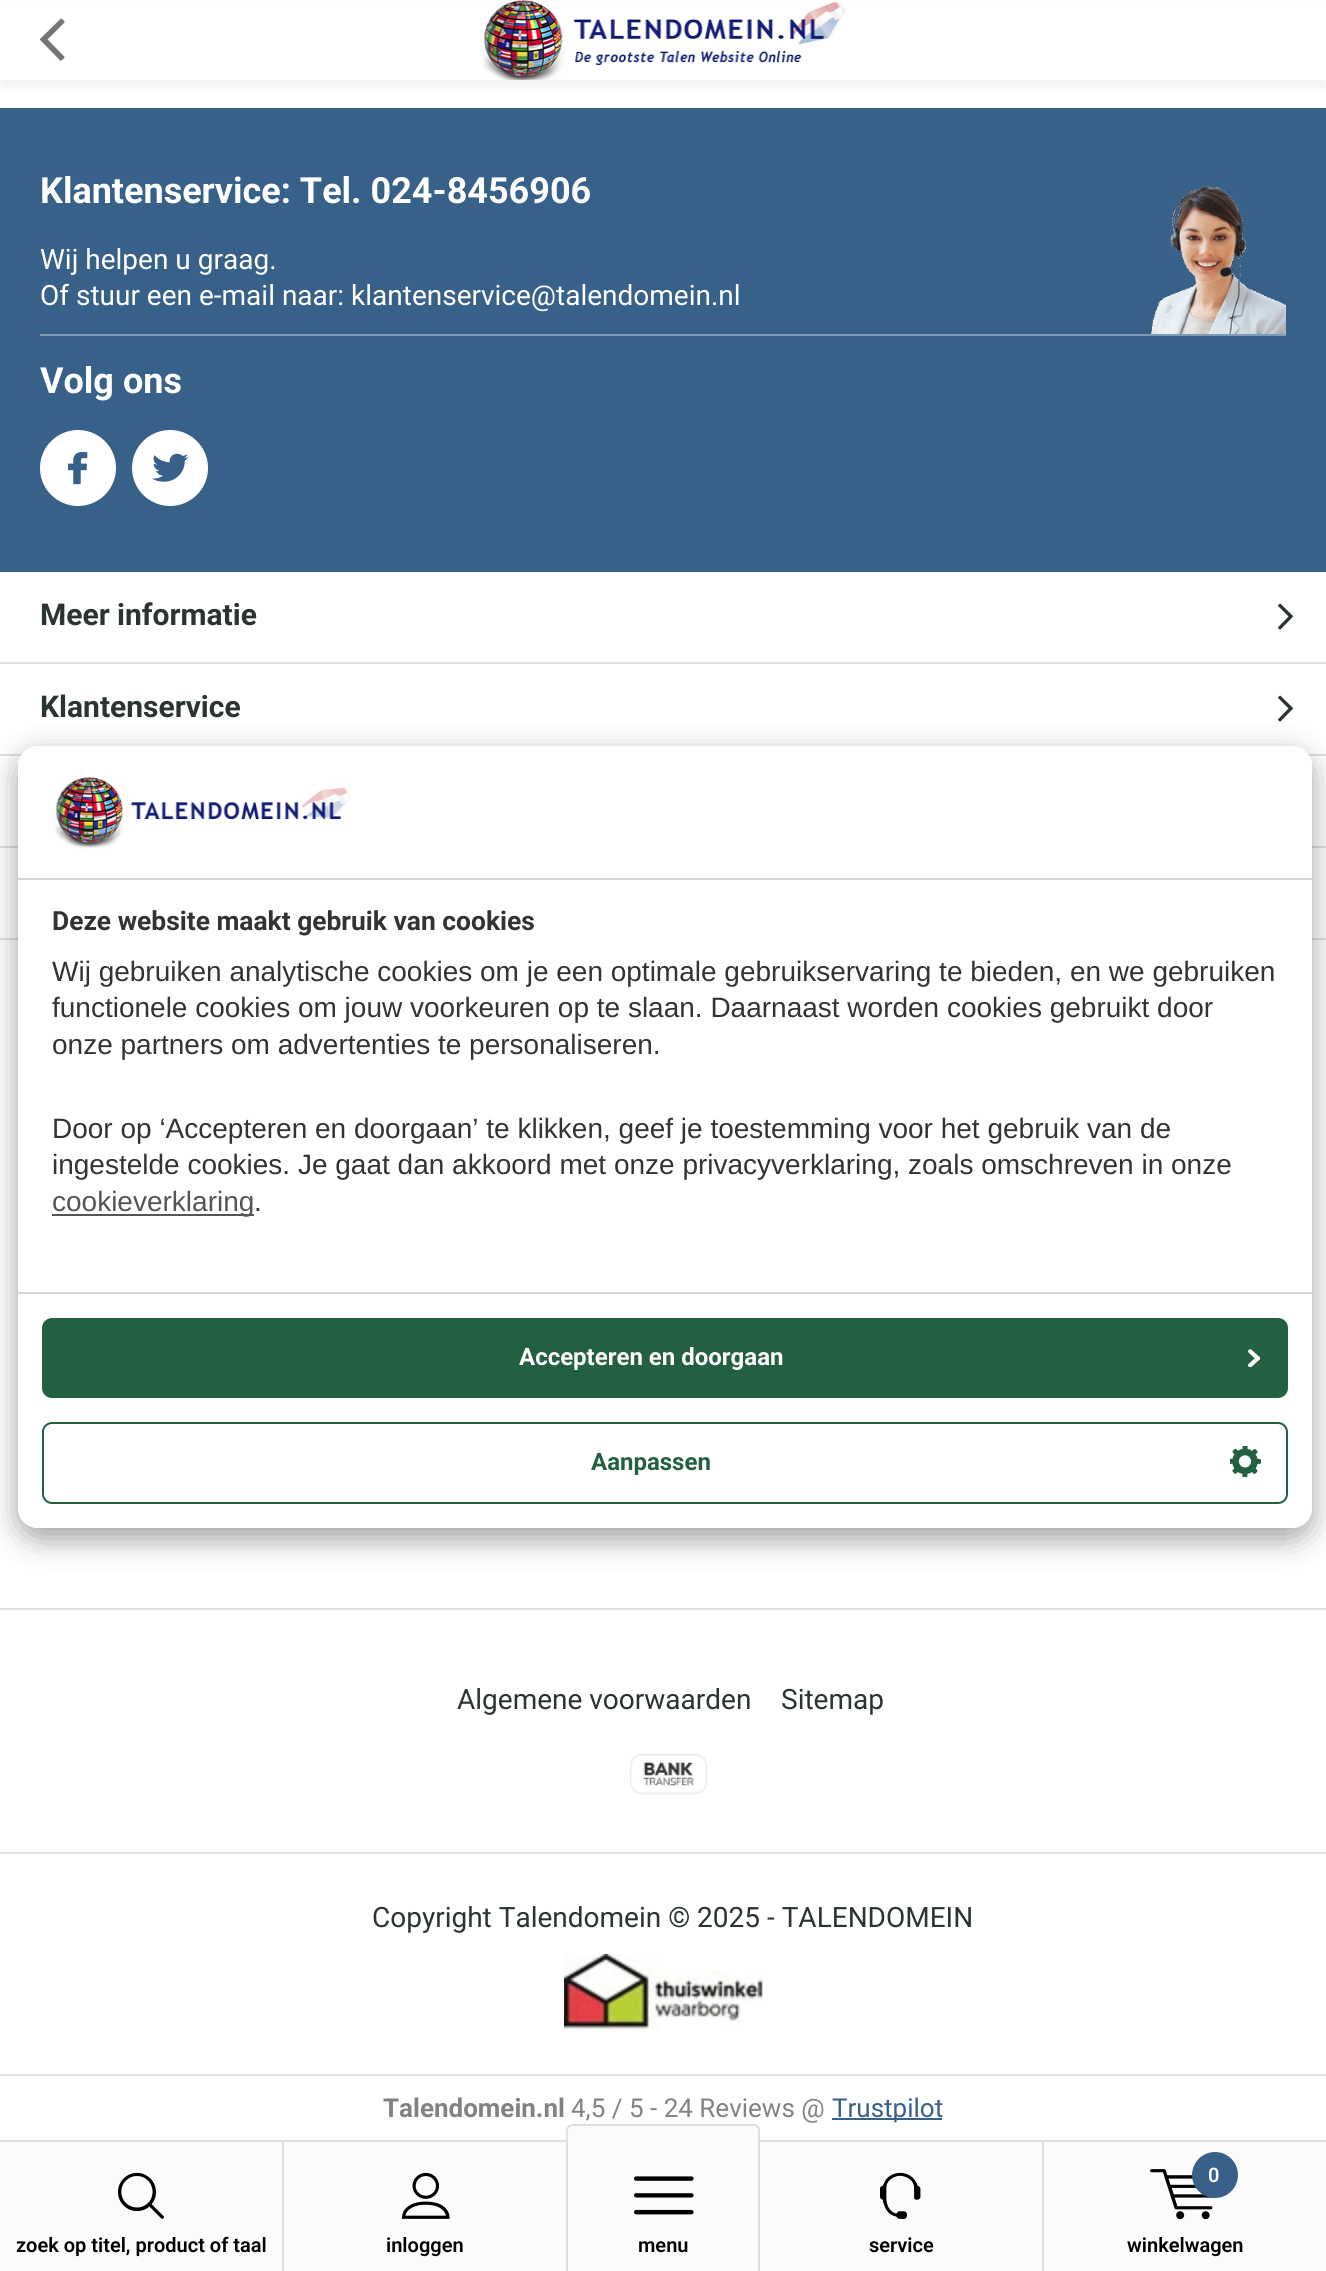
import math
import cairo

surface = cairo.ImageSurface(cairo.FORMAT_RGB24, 1326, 2271)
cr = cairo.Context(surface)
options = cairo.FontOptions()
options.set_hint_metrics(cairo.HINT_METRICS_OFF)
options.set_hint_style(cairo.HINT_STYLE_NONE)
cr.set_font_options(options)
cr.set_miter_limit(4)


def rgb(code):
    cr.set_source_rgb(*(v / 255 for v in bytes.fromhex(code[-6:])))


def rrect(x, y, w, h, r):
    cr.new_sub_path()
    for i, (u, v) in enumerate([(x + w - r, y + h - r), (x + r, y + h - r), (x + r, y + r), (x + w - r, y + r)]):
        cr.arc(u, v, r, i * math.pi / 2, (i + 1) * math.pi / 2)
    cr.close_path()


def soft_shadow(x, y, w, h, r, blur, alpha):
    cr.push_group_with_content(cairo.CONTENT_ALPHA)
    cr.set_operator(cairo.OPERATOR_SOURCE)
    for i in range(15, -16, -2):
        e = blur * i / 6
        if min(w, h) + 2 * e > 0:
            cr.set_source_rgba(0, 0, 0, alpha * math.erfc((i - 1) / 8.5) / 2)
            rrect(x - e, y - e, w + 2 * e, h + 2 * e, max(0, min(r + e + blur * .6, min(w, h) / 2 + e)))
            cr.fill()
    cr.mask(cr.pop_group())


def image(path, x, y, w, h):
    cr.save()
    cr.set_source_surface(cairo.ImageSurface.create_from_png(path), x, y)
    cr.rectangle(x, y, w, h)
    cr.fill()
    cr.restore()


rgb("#ffffff")
cr.paint()
rgb("#376189")
cr.rectangle(0, 108, 1326, 464)
cr.fill()
rgb("#7f9ab3")
cr.rectangle(40, 334, 1246, 2)
cr.fill()
image("img/1.png", 1151, 186, 135, 148)
rgb("#ffffff")
cr.arc(78, 468, 38, 0, 2 * math.pi)
cr.fill()
image("img/2.png", 68, 452, 20, 33)
cr.arc(170, 468, 38, 0, 2 * math.pi)
cr.fill()
image("img/3.png", 152, 453, 37, 29)
rgb("#e0e0e0")
cr.rectangle(0, 1608, 1326, 2)
cr.fill()
image("img/4.png", 1278, 603, 15, 27)
cr.rectangle(0, 662, 1326, 2)
cr.fill()
image("img/4.png", 1278, 695, 15, 27)
for x, y, w, h, color in [
    (0, 754, 1326, 2, "#e0e0e0"),
    (0, 846, 1326, 2, "#e0e0e0"),
    (0, 938, 1326, 2, "#e0e0e0"),
]:
    rgb(color)
    cr.rectangle(x, y, w, h)
    cr.fill()
rgb("#fafafa")
rrect(40, 1090, 1246, 458, 8)
cr.fill()
image("img/5.png", 630, 1754, 77, 40)
rgb("#e0e0e0")
cr.rectangle(0, 1852, 1326, 2)
cr.fill()
image("img/6.png", 564, 1954, 200, 76)
cr.rectangle(0, 2074, 1326, 2)
cr.fill()
rgb("#376189")
cr.rectangle(832, 2118, 110, 2)
cr.fill()
rgb("#000000")
soft_shadow(0, 8, 1326, 80, 0, 4, 0.05)
rgb("#ffffff")
cr.rectangle(0, 5, 1326, 75)
cr.fill()
image("img/7.png", 40, 18, 25, 43)
image("img/8.png", 482, 0, 364, 80)
rgb("#fbfbfb")
cr.rectangle(0, 2142, 282, 129)
cr.fill()
image("img/9.png", 118, 2172, 46, 47)
for x, y, w, h, color in [
    (284, 2142, 282, 129, "#fbfbfb"),
    (0, 2140, 566, 2, "#dfdfdf"),
    (282, 2140, 2, 131, "#dfdfdf"),
]:
    rgb(color)
    cr.rectangle(x, y, w, h)
    cr.fill()
image("img/10.png", 402, 2172, 48, 47)
for x, y, w, h, color in [
    (568, 2142, 190, 129, "#fbfbfb"),
    (566, 2140, 2, 131, "#dfdfdf"),
    (758, 2140, 568, 2, "#dfdfdf"),
    (758, 2140, 2, 131, "#dfdfdf"),
]:
    rgb(color)
    cr.rectangle(x, y, w, h)
    cr.fill()
rgb("#fbfbfb")
cr.new_path()
cr.move_to(572, 2124)
cr.line_to(754, 2124)
cr.curve_to(757.5, 2124, 760, 2126.5, 760, 2130)
cr.line_to(760, 2142)
cr.line_to(566, 2142)
cr.line_to(566, 2130)
cr.curve_to(566, 2126.5, 568.5, 2124, 572, 2124)
cr.close_path()
cr.fill()
rgb("#dfdfdf")
cr.set_fill_rule(cairo.FILL_RULE_EVEN_ODD)
cr.new_path()
cr.move_to(572, 2124)
cr.line_to(754, 2124)
cr.curve_to(757, 2124, 760, 2127, 760, 2130)
cr.line_to(760, 2142)
cr.line_to(566, 2142)
cr.curve_to(566, 2137, 564, 2124, 572, 2124)
cr.close_path()
cr.move_to(572, 2126)
cr.line_to(754, 2126)
cr.curve_to(756, 2126, 758, 2128, 758, 2130)
cr.line_to(758, 2142)
cr.line_to(568, 2142)
cr.curve_to(568, 2138, 566, 2126, 572, 2126)
cr.close_path()
cr.fill()
image("img/11.png", 634, 2176, 60, 39)
rgb("#fbfbfb")
cr.rectangle(760, 2142, 282, 129)
cr.fill()
image("img/12.png", 880, 2172, 41, 47)
cr.rectangle(1044, 2142, 282, 129)
cr.fill()
rgb("#dfdfdf")
cr.rectangle(1042, 2140, 2, 131)
cr.fill()
image("img/13.png", 1150, 2169, 66, 51)
rgb("#376189")
cr.arc(1215, 2175, 23, 0, 2 * math.pi)
cr.fill()
rgb("#000000")
soft_shadow(18, 756, 1294, 782, 20, 15, 0.19)
soft_shadow(18, 756, 1294, 782, 20, 15, 0.2)
rgb("#ffffff")
rrect(18, 746, 1294, 782, 20)
cr.fill()
cr.new_path()
cr.move_to(38, 746)
cr.line_to(1292, 746)
cr.curve_to(1303, 746, 1312, 755, 1312, 766)
cr.line_to(1312, 880)
cr.line_to(18, 880)
cr.line_to(18, 766)
cr.curve_to(18, 755, 27, 746, 38, 746)
cr.close_path()
cr.fill()
rgb("#d6d6d6")
cr.rectangle(18, 878, 1294, 2)
cr.fill()
image("img/14.png", 55, 777, 296, 72)
rgb("#555555")
cr.rectangle(52, 1214, 202, 2)
cr.fill()
rgb("#ffffff")
cr.new_path()
cr.move_to(18, 1292)
cr.line_to(1312, 1292)
cr.line_to(1312, 1508)
cr.curve_to(1312, 1519, 1303, 1528, 1292, 1528)
cr.line_to(38, 1528)
cr.curve_to(27, 1528, 18, 1519, 18, 1508)
cr.close_path()
cr.fill()
rgb("#d6d6d6")
cr.rectangle(18, 1292, 1294, 2)
cr.fill()
rgb("#235f41")
rrect(43, 1319, 1244, 78, 9)
cr.fill_preserve()
cr.stroke()
image("img/15.png", 1248, 1349, 12, 18)
rrect(43, 1423, 1244, 80, 9)
cr.stroke()
image("img/16.png", 1230, 1446, 31, 31)
cr.select_font_face("Roboto", cairo.FONT_SLANT_NORMAL, cairo.FONT_WEIGHT_BOLD)
cr.set_font_size(36)
rgb("#ffffff")
cr.move_to(40, 203)
cr.show_text("Klantenservice: Tel. 024-8456906")
cr.select_font_face("Roboto")
cr.set_font_size(28)
cr.move_to(40, 269)
cr.show_text("Wij helpen u graag.")
cr.move_to(40, 305)
cr.show_text("Of stuur een e-mail naar: klantenservice@talendomein.nl")
cr.select_font_face("Roboto", cairo.FONT_SLANT_NORMAL, cairo.FONT_WEIGHT_BOLD)
cr.set_font_size(36)
cr.move_to(40, 393)
cr.show_text("Volg ons")
cr.set_font_size(30)
rgb("#2b3431")
cr.move_to(40, 625)
cr.show_text("Meer informatie")
cr.move_to(40, 717)
cr.show_text("Klantenservice")
cr.select_font_face("Roboto")
cr.set_font_size(28)
for x, y, s in [
    (457, 1709, "Algemene voorwaarden"),
    (781, 1709, "Sitemap"),
    (372, 1927, "Copyright Talendomein © 2025 - TALENDOMEIN"),
]:
    cr.move_to(x, y)
    cr.show_text(s)
cr.select_font_face("Roboto", cairo.FONT_SLANT_NORMAL, cairo.FONT_WEIGHT_BOLD)
cr.set_font_size(26)
rgb("#828282")
cr.move_to(383, 2117)
cr.show_text("Talendomein.nl")
cr.select_font_face("Roboto")
cr.move_to(571, 2117)
cr.show_text("4,5 / 5 - 24 Reviews @")
rgb("#376189")
cr.move_to(832, 2117)
cr.show_text("Trustpilot")
cr.select_font_face("Roboto SemiBold")
cr.set_font_size(20)
rgb("#000000")
for x, y, s in [
    (16, 2252, "zoek op titel, product of taal"),
    (386, 2252, "inloggen"),
    (638, 2252, "menu"),
    (869, 2252, "service"),
]:
    cr.move_to(x, y)
    cr.show_text(s)
rgb("#ffffff")
cr.move_to(1208, 2182)
cr.show_text("0")
rgb("#000000")
cr.move_to(1127, 2252)
cr.show_text("winkelwagen")
cr.select_font_face("Roboto", cairo.FONT_SLANT_NORMAL, cairo.FONT_WEIGHT_BOLD)
cr.set_font_size(26.4)
rgb("#333333")
cr.move_to(52, 930)
cr.show_text("Deze website maakt gebruik van cookies")
cr.select_font_face("Liberation Sans")
cr.set_font_size(28)
for x, y, s in [
    (52, 981, "Wij gebruiken analytische cookies om je een optimale gebruikservaring te bieden, en we gebruiken"),
    (52, 1017, "functionele cookies om jouw voorkeuren op te slaan. Daarnaast worden cookies gebruikt door"),
    (52, 1054, "onze partners om advertenties te personaliseren."),
    (52, 1138, "Door op ‘Accepteren en doorgaan’ te klikken, geef je toestemming voor het gebruik van de"),
    (52, 1174, "ingestelde cookies. Je gaat dan akkoord met onze privacyverklaring, zoals omschreven in onze"),
]:
    cr.move_to(x, y)
    cr.show_text(s)
rgb("#555555")
cr.move_to(52, 1211)
cr.show_text("cookieverklaring")
rgb("#333333")
cr.move_to(254, 1211)
cr.show_text(".")
cr.select_font_face("Roboto", cairo.FONT_SLANT_NORMAL, cairo.FONT_WEIGHT_BOLD)
cr.set_font_size(24)
rgb("#ffffff")
cr.move_to(519, 1365)
cr.show_text("Accepteren en doorgaan")
rgb("#235f41")
cr.move_to(591, 1470)
cr.show_text("Aanpassen")
surface.write_to_png("page.png")
